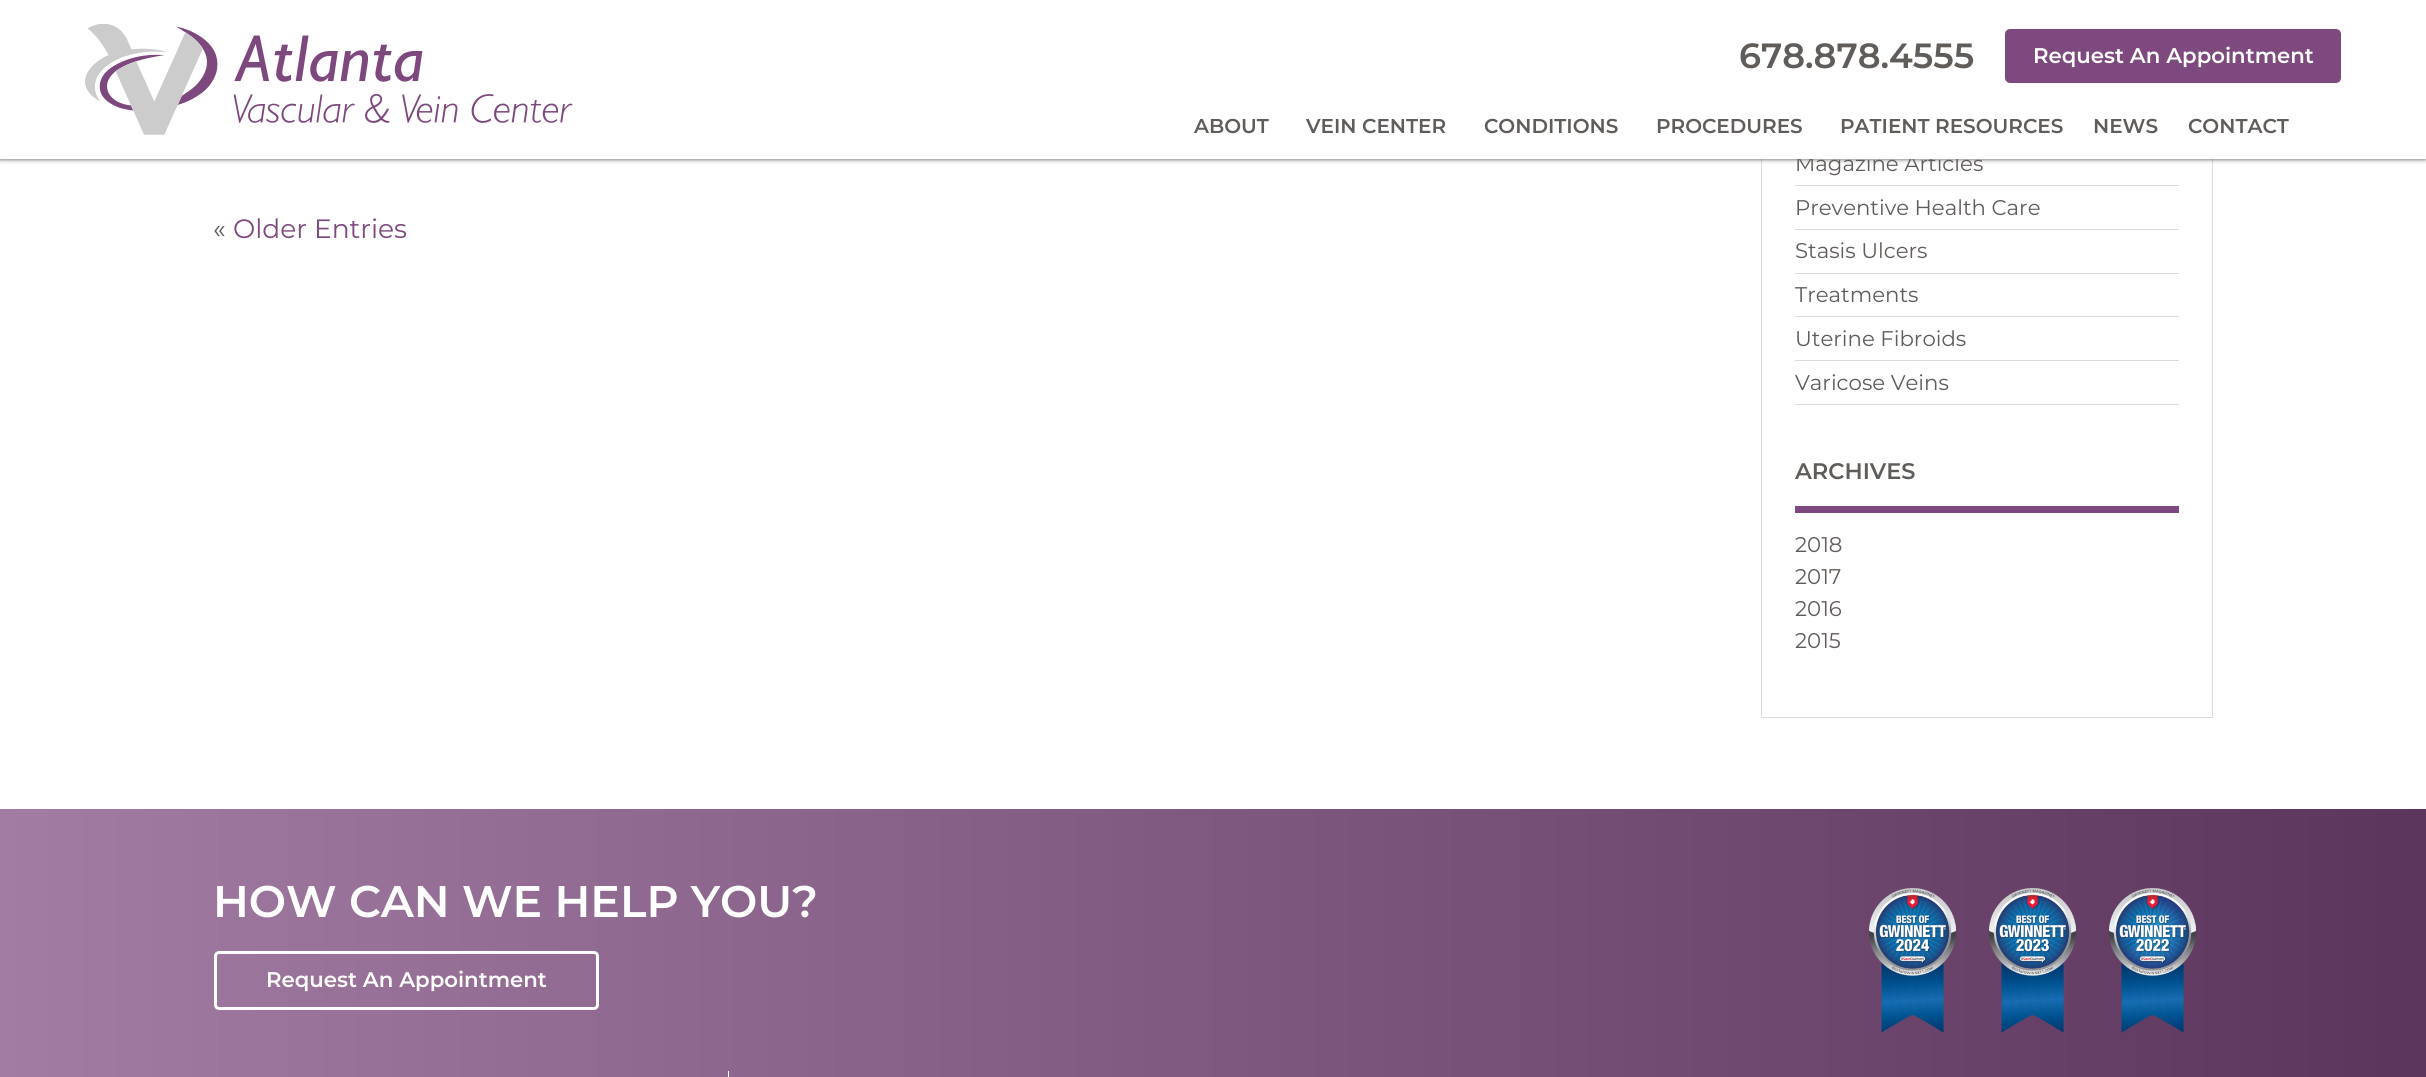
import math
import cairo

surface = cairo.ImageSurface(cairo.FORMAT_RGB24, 2426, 1077)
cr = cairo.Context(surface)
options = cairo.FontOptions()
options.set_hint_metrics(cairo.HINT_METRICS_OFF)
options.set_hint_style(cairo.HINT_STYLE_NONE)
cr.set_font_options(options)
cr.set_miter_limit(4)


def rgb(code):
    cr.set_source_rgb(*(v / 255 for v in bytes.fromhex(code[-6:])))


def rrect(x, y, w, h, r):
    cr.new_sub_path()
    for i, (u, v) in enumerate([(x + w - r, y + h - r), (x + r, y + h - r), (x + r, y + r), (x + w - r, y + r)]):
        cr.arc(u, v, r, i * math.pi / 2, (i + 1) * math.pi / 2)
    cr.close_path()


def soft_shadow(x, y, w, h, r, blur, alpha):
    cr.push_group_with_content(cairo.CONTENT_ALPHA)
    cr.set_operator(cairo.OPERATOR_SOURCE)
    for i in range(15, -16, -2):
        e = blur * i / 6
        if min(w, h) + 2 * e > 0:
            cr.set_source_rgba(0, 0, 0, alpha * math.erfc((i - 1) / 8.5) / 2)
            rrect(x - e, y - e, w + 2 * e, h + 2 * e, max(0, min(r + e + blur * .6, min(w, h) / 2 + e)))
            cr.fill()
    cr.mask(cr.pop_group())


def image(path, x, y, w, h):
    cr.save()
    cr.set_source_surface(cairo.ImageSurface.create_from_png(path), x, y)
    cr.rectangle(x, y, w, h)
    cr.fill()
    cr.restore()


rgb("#ffffff")
cr.paint()
gradient = cairo.LinearGradient(0, 486, 2426, 486)
gradient.add_color_stop_rgba(0, 0.635, 0.486, 0.635, 1)
gradient.add_color_stop_rgba(1, 0.357, 0.208, 0.357, 1)
cr.set_source(gradient)
cr.rectangle(0, 809, 2426, 268)
cr.fill()
cr.rectangle(1761.5, -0.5, 451, 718)
rgb("#dcdcdc")
cr.set_line_width(1)
cr.stroke()
rgb("#000000")
soft_shadow(0, 0, 2426, 159, 0, 2.5, 0.7)
for x, y, w, h, color in [
    (1795, 185, 384, 1, "#dcdcdc"),
    (1795, 229, 384, 1, "#dcdcdc"),
    (1795, 273, 384, 1, "#dcdcdc"),
    (1795, 316, 384, 1, "#dcdcdc"),
    (1795, 360, 384, 1, "#dcdcdc"),
    (1795, 404, 384, 1, "#dcdcdc"),
    (1795, 506, 384, 7, "#7e497e"),
]:
    rgb(color)
    cr.rectangle(x, y, w, h)
    cr.fill()
rrect(215.5, 952.5, 382, 56, 3.5)
rgb("#ffffff")
cr.set_line_width(3)
cr.stroke()
cr.rectangle(728, 1071, 1, 6)
cr.fill()
image("img/2.png", 1869, 888, 88, 145)
image("img/3.png", 1989, 888, 88, 145)
image("img/4.png", 2109, 888, 88, 145)
cr.select_font_face("Montserrat")
cr.set_font_size(26.5)
rgb("#605c5a")
cr.move_to(213, 238)
cr.show_text("«")
rgb("#7e497e")
cr.move_to(233, 238)
cr.show_text("Older Entries")
cr.set_font_size(21.25)
rgb("#605c5a")
cr.move_to(1795, 171)
cr.show_text("Magazine Articles")
rgb("#ffffff")
cr.rectangle(0, 0, 2426, 159)
cr.fill()
cr.select_font_face("Montserrat SemiBold")
cr.set_font_size(20)
rgb("#605c5a")
for x, y, s in [
    (2188, 133, "CONTACT"),
    (2093, 133, "NEWS"),
    (1840, 133, "PATIENT RESOURCES"),
    (1656, 133, "PROCEDURES"),
    (1484, 133, "CONDITIONS"),
    (1306, 133, "VEIN CENTER"),
    (1194, 133, "ABOUT"),
]:
    cr.move_to(x, y)
    cr.show_text(s)
image("img/1.png", 85, 24, 488, 111)
rgb("#7e497e")
rrect(2005, 29, 336, 54, 5)
cr.fill()
cr.set_font_size(21.25)
rgb("#ffffff")
cr.move_to(2033, 63)
cr.show_text("Request An Appointment")
cr.set_font_size(35)
rgb("#605c5a")
cr.move_to(1739, 68)
cr.show_text("678.878.4555")
cr.select_font_face("Montserrat")
cr.set_font_size(21.25)
for x, y, s in [
    (1795, 215, "Preventive Health Care"),
    (1795, 258, "Stasis Ulcers"),
    (1795, 302, "Treatments"),
    (1795, 346, "Uterine Fibroids"),
    (1795, 390, "Varicose Veins"),
]:
    cr.move_to(x, y)
    cr.show_text(s)
cr.select_font_face("Montserrat SemiBold")
cr.set_font_size(22.5)
cr.move_to(1795, 479)
cr.show_text("ARCHIVES")
cr.select_font_face("Montserrat")
cr.set_font_size(21.25)
for x, y, s in [
    (1795, 552, "2018"),
    (1795, 584, "2017"),
    (1795, 616, "2016"),
    (1795, 648, "2015"),
]:
    cr.move_to(x, y)
    cr.show_text(s)
cr.select_font_face("Montserrat SemiBold")
cr.set_font_size(44.25)
rgb("#ffffff")
cr.move_to(213, 917)
cr.show_text("HOW CAN WE HELP YOU?")
cr.set_font_size(21.25)
cr.move_to(266, 987)
cr.show_text("Request An Appointment")
surface.write_to_png("page.png")
